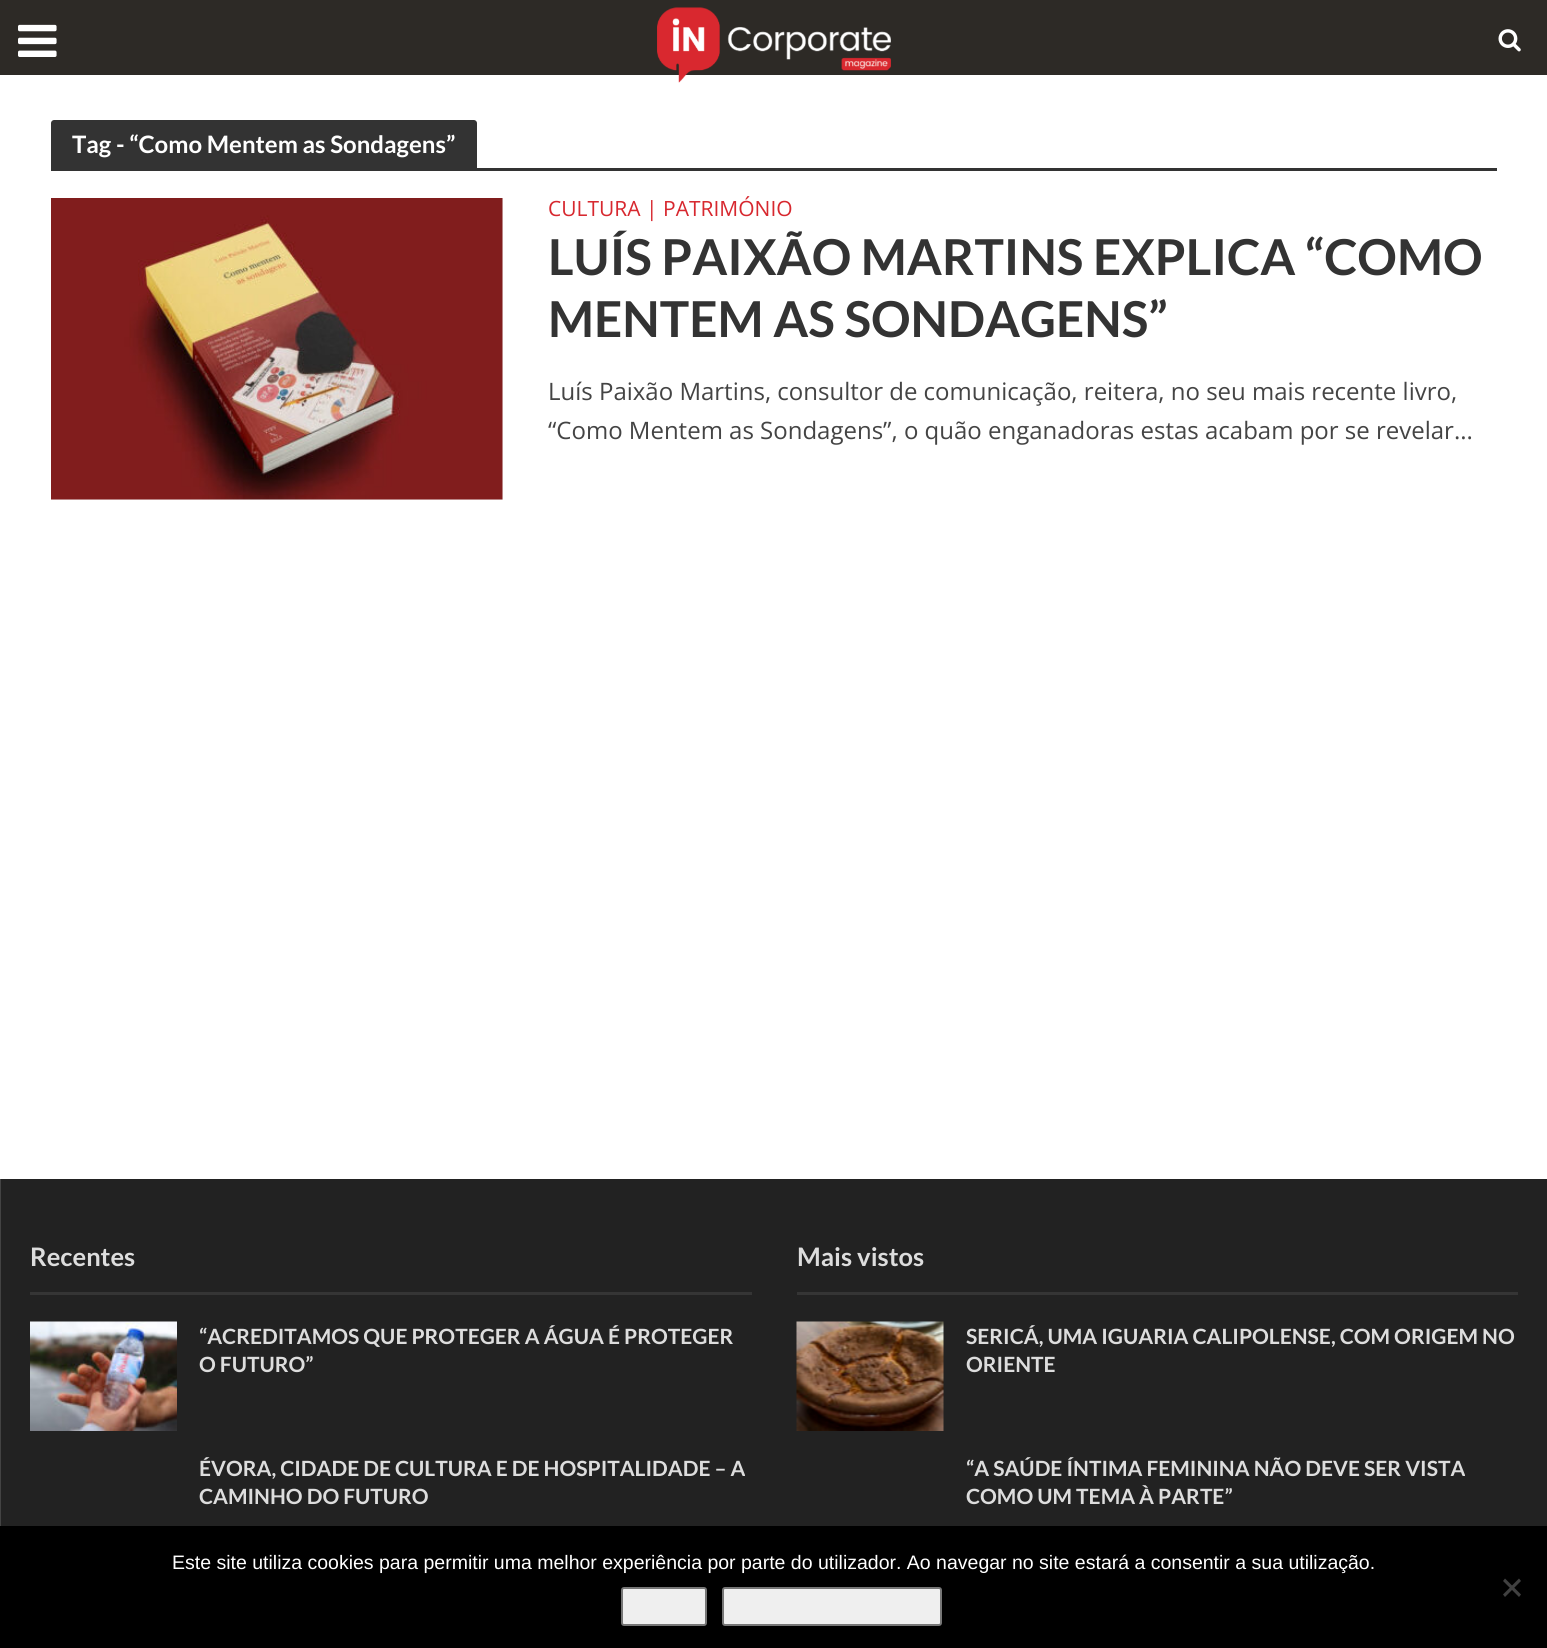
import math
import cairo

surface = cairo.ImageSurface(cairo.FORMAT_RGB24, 1547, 1648)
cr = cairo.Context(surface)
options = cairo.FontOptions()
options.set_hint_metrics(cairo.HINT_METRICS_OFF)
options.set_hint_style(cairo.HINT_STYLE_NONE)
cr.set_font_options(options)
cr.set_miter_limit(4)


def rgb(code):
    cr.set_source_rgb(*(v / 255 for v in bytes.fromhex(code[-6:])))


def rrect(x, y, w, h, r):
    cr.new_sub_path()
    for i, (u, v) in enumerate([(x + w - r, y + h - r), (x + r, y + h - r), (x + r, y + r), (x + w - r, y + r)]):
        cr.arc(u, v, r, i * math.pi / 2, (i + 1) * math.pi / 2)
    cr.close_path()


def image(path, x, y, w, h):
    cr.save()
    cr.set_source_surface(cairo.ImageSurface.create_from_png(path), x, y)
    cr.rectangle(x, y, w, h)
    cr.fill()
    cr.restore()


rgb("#ffffff")
cr.paint()
rgb("#2d2a26")
cr.rectangle(0, 0, 1547, 75)
cr.fill()
image("img/1.png", 18, 24, 39, 33)
image("img/2.png", 657, 7, 234, 76)
image("img/3.png", 1498, 29, 23, 23)
rgb("#333333")
cr.new_path()
cr.move_to(54, 120)
cr.line_to(474, 120)
cr.curve_to(475.5, 120, 477, 121.5, 477, 123)
cr.line_to(477, 168)
cr.line_to(51, 168)
cr.line_to(51, 123)
cr.curve_to(51, 121.5, 52.5, 120, 54, 120)
cr.close_path()
cr.fill()
cr.rectangle(51, 168, 1446, 3)
cr.fill()
rgb("#f3f3f3")
cr.rectangle(51, 198, 452, 302)
cr.fill()
image("img/4.png", 51, 198, 452, 302)
for x, y, w, h, color in [
    (1, 1179, 1546, 347, "#222222"),
    (0, 1179, 1, 347, "#434343"),
    (30, 1292, 722, 3, "#353535"),
]:
    rgb(color)
    cr.rectangle(x, y, w, h)
    cr.fill()
image("img/5.png", 30, 1321, 147, 110)
cr.rectangle(797, 1292, 721, 3)
cr.fill()
image("img/6.png", 796, 1321, 148, 110)
rgb("#000000")
cr.rectangle(0, 1526, 1547, 122)
cr.fill()
rgb("#efefef")
rrect(622, 1588, 84, 37, 2)
cr.fill_preserve()
rgb("#767676")
cr.stroke()
rgb("#efefef")
rrect(723, 1588, 218, 37, 2)
cr.fill_preserve()
rgb("#767676")
cr.stroke()
rgb("#404040")
cr.new_path()
cr.move_to(1519, 1578.5)
cr.line_to(1521, 1581)
cr.line_to(1505, 1597)
cr.line_to(1503, 1594.5)
cr.close_path()
cr.fill()
cr.new_path()
cr.move_to(1503, 1581)
cr.line_to(1505, 1578.5)
cr.line_to(1521, 1594.5)
cr.line_to(1519, 1597)
cr.close_path()
cr.fill()
cr.select_font_face("Lato", cairo.FONT_SLANT_NORMAL, cairo.FONT_WEIGHT_BOLD)
cr.set_font_size(24)
rgb("#ffffff")
cr.move_to(72, 153)
cr.show_text("Tag - “Como Mentem as Sondagens”")
cr.select_font_face("Open Sans")
cr.set_font_size(21)
rgb("#d7282f")
cr.move_to(548, 216)
cr.show_text("CULTURA | PATRIMÓNIO")
cr.select_font_face("Lato", cairo.FONT_SLANT_NORMAL, cairo.FONT_WEIGHT_BOLD)
cr.set_font_size(49.5)
rgb("#333333")
cr.move_to(548, 275)
cr.show_text("LUÍS PAIXÃO MARTINS EXPLICA “COMO")
cr.move_to(548, 337)
cr.show_text("MENTEM AS SONDAGENS”")
cr.select_font_face("Open Sans")
cr.set_font_size(24)
rgb("#444444")
cr.move_to(548, 400)
cr.show_text("Luís Paixão Martins, consultor de comunicação, reitera, no seu mais recente livro,")
cr.move_to(548, 439)
cr.show_text("“Como Mentem as Sondagens”, o quão enganadoras estas acabam por se revelar...")
cr.select_font_face("Lato", cairo.FONT_SLANT_NORMAL, cairo.FONT_WEIGHT_BOLD)
cr.set_font_size(25.5)
rgb("#dddddd")
cr.move_to(30, 1266)
cr.show_text("Recentes")
cr.set_font_size(21)
for x, y, s in [
    (199, 1344, "“ACREDITAMOS QUE PROTEGER A ÁGUA É PROTEGER"),
    (199, 1372, "O FUTURO”"),
    (199, 1476, "ÉVORA, CIDADE DE CULTURA E DE HOSPITALIDADE – A"),
    (199, 1504, "CAMINHO DO FUTURO"),
]:
    cr.move_to(x, y)
    cr.show_text(s)
cr.set_font_size(25.5)
cr.move_to(797, 1266)
cr.show_text("Mais vistos")
cr.set_font_size(21)
for x, y, s in [
    (966, 1344, "SERICÁ, UMA IGUARIA CALIPOLENSE, COM ORIGEM NO"),
    (966, 1372, "ORIENTE"),
    (966, 1476, "“A SAÚDE ÍNTIMA FEMININA NÃO DEVE SER VISTA"),
    (966, 1504, "COMO UM TEMA À PARTE”"),
]:
    cr.move_to(x, y)
    cr.show_text(s)
cr.select_font_face("Liberation Sans")
cr.set_font_size(19.5)
rgb("#ffffff")
cr.move_to(172, 1569)
cr.show_text("Este site utiliza cookies para permitir uma melhor experiência por parte do utilizador. Ao navegar no site estará a consentir a sua utilização.")
surface.write_to_png("page.png")
